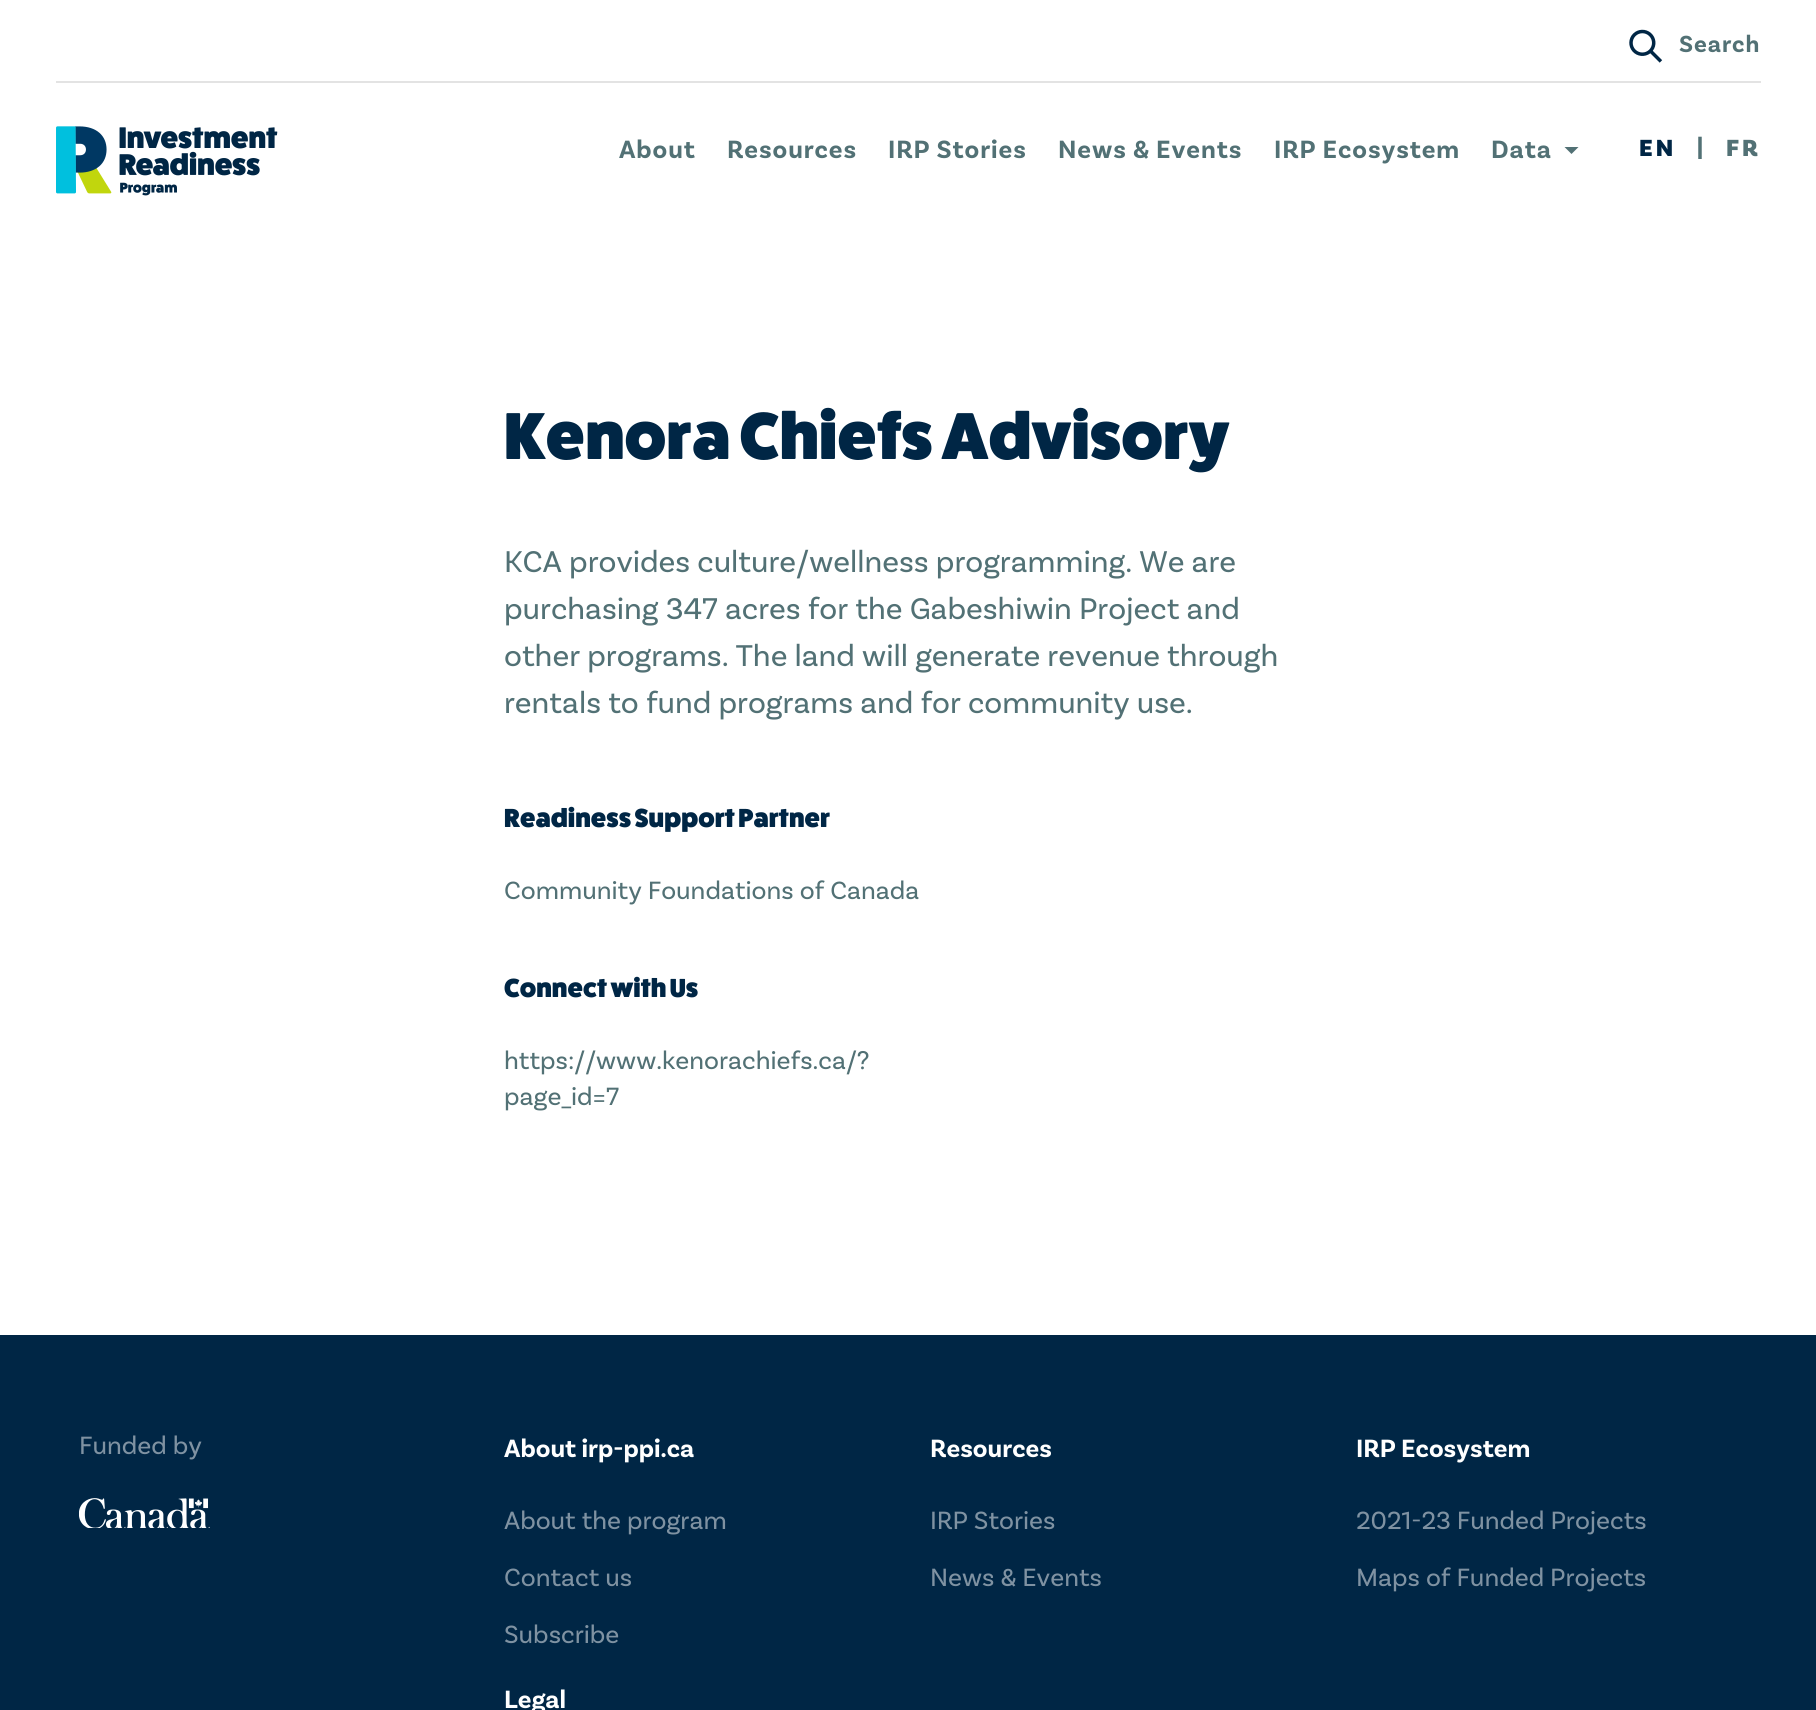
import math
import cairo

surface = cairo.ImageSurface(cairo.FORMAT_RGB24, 1816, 1710)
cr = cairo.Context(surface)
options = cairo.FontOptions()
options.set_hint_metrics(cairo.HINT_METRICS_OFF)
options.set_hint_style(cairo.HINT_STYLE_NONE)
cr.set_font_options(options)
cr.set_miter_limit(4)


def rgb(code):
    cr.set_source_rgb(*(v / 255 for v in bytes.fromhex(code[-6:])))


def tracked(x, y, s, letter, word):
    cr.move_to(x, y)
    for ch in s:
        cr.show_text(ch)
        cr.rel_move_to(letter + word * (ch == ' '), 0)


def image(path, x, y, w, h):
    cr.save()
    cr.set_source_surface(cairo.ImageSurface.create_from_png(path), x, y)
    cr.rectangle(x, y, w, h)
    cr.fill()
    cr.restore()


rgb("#ffffff")
cr.paint()
image("img/1.png", 1629, 29, 34, 34)
rgb("#e3e3e3")
cr.rectangle(56, 81, 1705, 2)
cr.fill()
image("img/2.png", 56, 126, 222, 70)
rgb("#527175")
cr.new_path()
cr.move_to(1564.5, 147)
cr.line_to(1578.5, 147)
cr.line_to(1571.5, 154)
cr.close_path()
cr.fill()
rgb("#002645")
cr.rectangle(0, 1335, 1816, 375)
cr.fill()
image("img/3.png", 79, 1498, 131, 30)
cr.select_font_face("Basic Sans", cairo.FONT_SLANT_NORMAL, cairo.FONT_WEIGHT_BOLD)
cr.set_font_size(24.5)
rgb("#527175")
tracked(1679, 52, "Search", 0.9, 0)
cr.set_font_size(26.25)
for x, y, s in [
    (619, 158, "About"),
    (727, 158, "Resources"),
    (888, 158, "IRP Stories"),
    (1058, 158, "News & Events"),
    (1274, 158, "IRP Ecosystem"),
    (1491, 158, "Data"),
]:
    tracked(x, y, s, 0.9, 0)
cr.select_font_face("Basic Sans Black")
cr.set_font_size(24.5)
rgb("#002645")
tracked(1639, 156, "EN", 3, 0)
rgb("#527175")
tracked(1697, 154, "|", 3, 0)
tracked(1726, 156, "FR", 3, 0)
cr.select_font_face("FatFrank")
cr.set_font_size(66.5)
rgb("#002645")
cr.move_to(504, 459)
cr.show_text("Kenora Chiefs Advisory")
cr.select_font_face("Basic Sans")
cr.set_font_size(31.5)
rgb("#527175")
for x, y, s in [
    (504, 572, "KCA provides culture/wellness programming. We are"),
    (504, 619, "purchasing 347 acres for the Gabeshiwin Project and"),
    (504, 666, "other programs. The land will generate revenue through"),
    (504, 713, "rentals to fund programs and for community use."),
]:
    cr.move_to(x, y)
    cr.show_text(s)
cr.select_font_face("FatFrank")
cr.set_font_size(26.25)
rgb("#002645")
cr.move_to(504, 827)
cr.show_text("Readiness Support Partner")
cr.select_font_face("Basic Sans")
rgb("#527175")
cr.move_to(504, 899)
cr.show_text("Community Foundations of Canada")
cr.select_font_face("FatFrank")
rgb("#002645")
cr.move_to(504, 997)
cr.show_text("Connect with Us")
cr.select_font_face("Basic Sans")
rgb("#527175")
cr.move_to(504, 1069)
cr.show_text("https://www.kenorachiefs.ca/?")
cr.move_to(504, 1105)
cr.show_text("page_id=7")
rgb("#7f92a2")
cr.move_to(79, 1454)
cr.show_text("Funded by")
cr.select_font_face("Basic Sans", cairo.FONT_SLANT_NORMAL, cairo.FONT_WEIGHT_BOLD)
rgb("#ffffff")
cr.move_to(504, 1457)
cr.show_text("About irp-ppi.ca")
cr.select_font_face("Basic Sans")
rgb("#7f92a2")
for x, y, s in [
    (504, 1529, "About the program"),
    (504, 1586, "Contact us"),
    (504, 1643, "Subscribe"),
]:
    cr.move_to(x, y)
    cr.show_text(s)
cr.select_font_face("Basic Sans", cairo.FONT_SLANT_NORMAL, cairo.FONT_WEIGHT_BOLD)
rgb("#ffffff")
cr.move_to(930, 1457)
cr.show_text("Resources")
cr.select_font_face("Basic Sans")
rgb("#7f92a2")
cr.move_to(930, 1529)
cr.show_text("IRP Stories")
cr.move_to(930, 1586)
cr.show_text("News & Events")
cr.select_font_face("Basic Sans", cairo.FONT_SLANT_NORMAL, cairo.FONT_WEIGHT_BOLD)
rgb("#ffffff")
cr.move_to(1356, 1457)
cr.show_text("IRP Ecosystem")
cr.select_font_face("Basic Sans")
rgb("#7f92a2")
cr.move_to(1356, 1529)
cr.show_text("2021-23 Funded Projects")
cr.move_to(1356, 1586)
cr.show_text("Maps of Funded Projects")
cr.select_font_face("Basic Sans", cairo.FONT_SLANT_NORMAL, cairo.FONT_WEIGHT_BOLD)
rgb("#ffffff")
cr.move_to(504, 1708)
cr.show_text("Legal")
surface.write_to_png("page.png")
